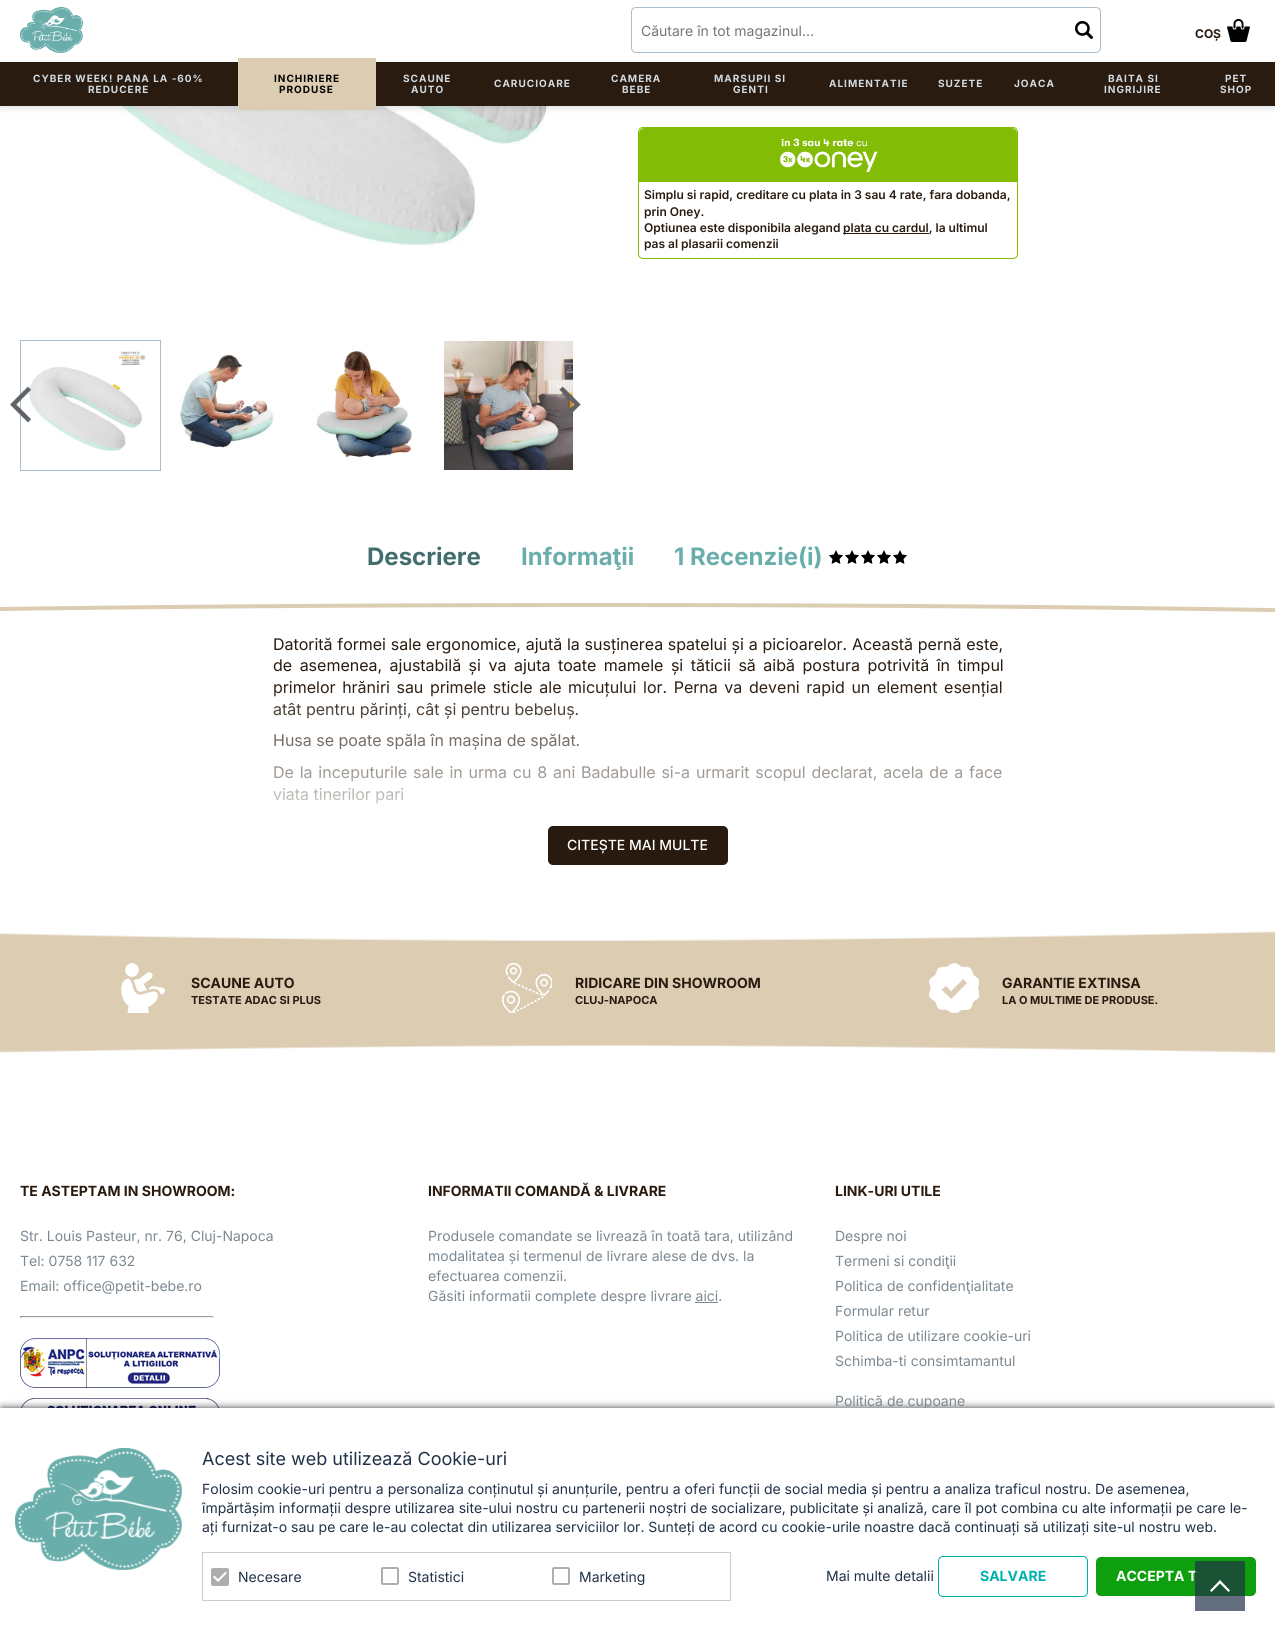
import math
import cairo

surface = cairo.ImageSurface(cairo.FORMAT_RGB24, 1275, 1641)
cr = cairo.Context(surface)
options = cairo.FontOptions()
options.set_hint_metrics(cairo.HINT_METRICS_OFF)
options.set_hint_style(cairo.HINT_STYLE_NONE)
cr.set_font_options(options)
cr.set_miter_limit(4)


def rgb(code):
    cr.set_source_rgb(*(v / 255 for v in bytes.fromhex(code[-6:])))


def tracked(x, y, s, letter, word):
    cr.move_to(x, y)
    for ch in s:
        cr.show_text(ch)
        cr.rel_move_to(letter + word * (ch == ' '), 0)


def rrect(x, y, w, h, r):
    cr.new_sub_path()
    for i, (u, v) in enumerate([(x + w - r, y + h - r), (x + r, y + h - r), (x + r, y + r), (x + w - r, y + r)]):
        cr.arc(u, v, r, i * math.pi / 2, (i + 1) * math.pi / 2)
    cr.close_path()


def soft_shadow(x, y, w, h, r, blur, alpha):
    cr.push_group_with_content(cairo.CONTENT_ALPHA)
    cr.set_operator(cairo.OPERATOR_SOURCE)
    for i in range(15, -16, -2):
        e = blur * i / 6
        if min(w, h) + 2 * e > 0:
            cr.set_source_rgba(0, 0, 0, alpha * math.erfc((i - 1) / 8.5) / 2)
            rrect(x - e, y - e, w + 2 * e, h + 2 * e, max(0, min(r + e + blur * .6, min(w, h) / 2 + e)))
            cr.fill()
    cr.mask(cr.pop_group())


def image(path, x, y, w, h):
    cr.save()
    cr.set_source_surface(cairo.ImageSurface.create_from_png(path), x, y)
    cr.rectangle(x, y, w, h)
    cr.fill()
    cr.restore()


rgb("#ffffff")
cr.paint()
image("img/1.png", 20, 7, 63, 46)
rrect(631.5, 7.5, 469, 45, 4.5)
rgb("#acbcc9")
cr.set_line_width(1)
cr.stroke()
image("img/2.png", 1075, 21, 18, 18)
image("img/3.png", 1227, 18, 23, 24)
image("img/4.png", 57, 106, 490, 140)
rgb("#213248")
soft_shadow(0, 65, 1275, 44, 0, 3, 0.12)
rgb("#291b0f")
cr.rectangle(0, 62, 1275, 44)
cr.fill()
rgb("#dbccb2")
cr.rectangle(238, 58, 138, 52)
cr.fill()
cr.rectangle(20.5, 340.5, 140, 130)
rgb("#acbcc9")
cr.stroke()
image("img/5.png", 29, 351, 117, 100)
image("img/6.png", 180, 354, 94, 94)
image("img/7.png", 316, 350, 96, 109)
image("img/8.png", 444, 341, 129, 129)
image("img/9.png", 10, 386, 21, 37)
image("img/10.png", 559, 386, 22, 36)
rrect(638.5, 127.5, 379, 131, 4.5)
rgb("#83bc05")
cr.stroke()
image("img/11.png", 639, 128, 378, 54)
rgb("#291b0f")
cr.rectangle(843, 233, 86, 1)
cr.fill()
image("img/12.png", 829, 550, 78, 14)
image("img/13.png", 0, 603, 1275, 10)
rgb("#281a0f")
rrect(548, 826, 180, 39, 5)
cr.fill()
image("img/14.png", 0, 931, 1275, 122)
image("img/15.png", 121, 963, 44, 50)
image("img/16.png", 502, 963, 50, 50)
image("img/17.png", 929, 963, 50, 50)
for x, y, w, h, color in [
    (20, 1316, 194, 1, "#9f9f9f"),
    (213, 1316, 1, 2, "#eeeeee"),
    (20, 1317, 194, 1, "#eeeeee"),
    (20, 1316, 1, 2, "#9f9f9f"),
]:
    rgb(color)
    cr.rectangle(x, y, w, h)
    cr.fill()
image("img/18.png", 20, 1338, 200, 50)
image("img/19.png", 20, 1398, 200, 10)
rgb("#7c8891")
cr.rectangle(695, 1302, 23, 1)
cr.fill()
rgb("#000000")
soft_shadow(2, 1408, 1271, 229, 0, 4, 0.75)
cr.select_font_face("Inter")
cr.set_font_size(14)
rgb("#757575")
cr.move_to(641, 36)
cr.show_text("Căutare în tot magazinul...")
cr.select_font_face("Inter", cairo.FONT_SLANT_NORMAL, cairo.FONT_WEIGHT_BOLD)
cr.set_font_size(12)
rgb("#291b0f")
cr.move_to(1195, 38)
cr.show_text("COȘ")
cr.set_font_size(10)
rgb("#d3dbe2")
tracked(33, 82, "CYBER WEEK! PANA LA -60%", 1, 0)
tracked(88, 93, "REDUCERE", 1, 0)
rgb("#000000")
tracked(274, 82, "INCHIRIERE", 1, 0)
tracked(279, 93, "PRODUSE", 1, 0)
rgb("#d3dbe2")
for x, y, s in [
    (403, 82, "SCAUNE"),
    (411, 93, "AUTO"),
    (494, 87, "CARUCIOARE"),
    (611, 82, "CAMERA"),
    (622, 93, "BEBE"),
    (714, 82, "MARSUPII SI"),
    (733, 93, "GENTI"),
    (829, 87, "ALIMENTATIE"),
    (938, 87, "SUZETE"),
    (1014, 87, "JOACA"),
    (1108, 82, "BAITA SI"),
    (1104, 93, "INGRIJIRE"),
    (1225, 82, "PET"),
    (1220, 93, "SHOP"),
]:
    tracked(x, y, s, 1, 0)
cr.select_font_face("Inter SemiBold")
cr.set_font_size(12)
rgb("#291b0f")
for x, y, s in [
    (644, 199, "Simplu si rapid, creditare cu plata in 3 sau 4 rate, fara dobanda,"),
    (644, 216, "prin Oney."),
    (644, 232, "Optiunea este disponibila alegand"),
    (843, 232, "plata cu cardul, la ultimul"),
    (644, 248, "pas al plasarii comenzii"),
]:
    cr.move_to(x, y)
    cr.show_text(s)
cr.select_font_face("Inter", cairo.FONT_SLANT_NORMAL, cairo.FONT_WEIGHT_BOLD)
cr.set_font_size(24)
rgb("#416e6d")
cr.move_to(367, 565)
cr.show_text("Descriere")
rgb("#69aeab")
cr.move_to(521, 565)
cr.show_text("Informaţii")
cr.move_to(674, 565)
cr.show_text("1 Recenzie(i)")
cr.select_font_face("Inter")
cr.set_font_size(16)
rgb("#291b0f")
tracked(273, 650, "Datorită formei sale ergonomice, ajută la susținerea spatelui și a picioarelor. Această pernă este,", 0, 0.25)
tracked(273, 671, "de asemenea, ajustabilă și va ajuta toate mamele și tăticii să aibă postura potrivită în timpul", 0, 3)
tracked(273, 693, "primelor hrăniri sau primele sticle ale micuțului lor. Perna va deveni rapid un element esențial", 0, 2.1)
cr.move_to(273, 715)
cr.show_text("atât pentru părinți, cât și pentru bebeluș.")
cr.move_to(273, 746)
cr.show_text("Husa se poate spăla în mașina de spălat.")
tracked(273, 778, "De la inceputurile sale in urma cu 8 ani Badabulle si-a urmarit scopul declarat, acela de a face", 0, 1.3)
cr.move_to(273, 800)
cr.show_text("viata tinerilor pari")
gradient = cairo.LinearGradient(638, 604, 638, 845)
gradient.add_color_stop_rgba(0.33, 1, 1, 1, 0)
gradient.add_color_stop_rgba(1, 1, 1, 1, 1)
cr.set_source(gradient)
cr.rectangle(273, 687, 729, 117)
cr.fill()
cr.select_font_face("Inter Medium")
cr.set_font_size(14)
rgb("#ffffff")
cr.move_to(567, 850)
cr.show_text("CITEȘTE MAI MULTE")
cr.select_font_face("Inter", cairo.FONT_SLANT_NORMAL, cairo.FONT_WEIGHT_BOLD)
rgb("#291b0f")
cr.move_to(191, 988)
cr.show_text("SCAUNE AUTO")
cr.set_font_size(11)
cr.move_to(191, 1004)
cr.show_text("TESTATE ADAC SI PLUS")
cr.set_font_size(14)
cr.move_to(575, 988)
cr.show_text("RIDICARE DIN SHOWROOM")
cr.set_font_size(11)
cr.move_to(575, 1004)
cr.show_text("CLUJ-NAPOCA")
cr.set_font_size(14)
cr.move_to(1002, 988)
cr.show_text("GARANTIE EXTINSA")
cr.set_font_size(11)
cr.move_to(1002, 1004)
cr.show_text("LA O MULTIME DE PRODUSE.")
cr.set_font_size(14)
cr.move_to(20, 1196)
cr.show_text("TE ASTEPTAM IN SHOWROOM:")
cr.select_font_face("Inter")
rgb("#7c8891")
for x, y, s in [
    (20, 1241, "Str. Louis Pasteur, nr. 76, Cluj-Napoca"),
    (20, 1266, "Tel: 0758 117 632"),
    (20, 1291, "Email: office@petit-bebe.ro"),
]:
    cr.move_to(x, y)
    cr.show_text(s)
cr.select_font_face("Inter", cairo.FONT_SLANT_NORMAL, cairo.FONT_WEIGHT_BOLD)
rgb("#291b0f")
cr.move_to(428, 1196)
cr.show_text("INFORMATII COMANDĂ & LIVRARE")
cr.select_font_face("Inter")
rgb("#7c8891")
for x, y, s in [
    (428, 1241, "Produsele comandate se livrează în toată tara, utilizând"),
    (428, 1261, "modalitatea și termenul de livrare alese de dvs. la"),
    (428, 1281, "efectuarea comenzii."),
    (428, 1301, "Găsiti informatii complete despre livrare aici."),
]:
    cr.move_to(x, y)
    cr.show_text(s)
cr.select_font_face("Inter", cairo.FONT_SLANT_NORMAL, cairo.FONT_WEIGHT_BOLD)
rgb("#291b0f")
cr.move_to(835, 1196)
cr.show_text("LINK-URI UTILE")
cr.select_font_face("Inter")
rgb("#7c8891")
for x, y, s in [
    (835, 1241, "Despre noi"),
    (835, 1266, "Termeni si condiţii"),
    (835, 1291, "Politica de confidenţialitate"),
    (835, 1316, "Formular retur"),
    (835, 1341, "Politica de utilizare cookie-uri"),
    (835, 1366, "Schimba-ti consimtamantul"),
    (835, 1406, "Politică de cupoane"),
]:
    cr.move_to(x, y)
    cr.show_text(s)
rgb("#ffffff")
cr.rectangle(0, 1408, 1275, 233)
cr.fill()
image("img/20.png", 15, 1448, 167, 122)
cr.set_font_size(18)
rgb("#213248")
cr.move_to(202, 1465)
cr.show_text("Acest site web utilizează Cookie-uri")
cr.set_font_size(14)
for x, y, s in [
    (202, 1494, "Folosim cookie-uri pentru a personaliza conținutul și anunțurile, pentru a oferi funcții de social media și pentru a analiza traficul nostru. De asemenea,"),
    (202, 1513, "împărtășim informații despre utilizarea site-ului nostru cu partenerii noștri de socializare, publicitate și analiză, care îl pot combina cu alte informații pe care le-"),
    (202, 1532, "ați furnizat-o sau pe care le-au colectat din utilizarea serviciilor lor. Sunteți de acord cu cookie-urile noastre dacă continuați să utilizați site-ul nostru web."),
]:
    cr.move_to(x, y)
    cr.show_text(s)
cr.rectangle(202.5, 1552.5, 528, 48)
rgb("#cccccc")
cr.stroke()
image("img/21.png", 211, 1568, 18, 18)
rgb("#213248")
cr.move_to(238, 1582)
cr.show_text("Necesare")
image("img/22.png", 381, 1567, 18, 18)
cr.move_to(408, 1582)
cr.show_text("Statistici")
image("img/22.png", 552, 1567, 18, 18)
cr.move_to(579, 1582)
cr.show_text("Marketing")
cr.move_to(826, 1581)
cr.show_text("Mai multe detalii")
rrect(938.5, 1556.5, 149, 40, 4.5)
rgb("#00b2ae")
cr.stroke()
cr.select_font_face("Inter", cairo.FONT_SLANT_NORMAL, cairo.FONT_WEIGHT_BOLD)
cr.move_to(980, 1581)
cr.show_text("SALVARE")
rgb("#0d9f0d")
rrect(1096, 1557, 160, 39, 5)
cr.fill()
rgb("#ffffff")
cr.move_to(1116, 1581)
cr.show_text("ACCEPTA T")
cr.set_source_rgba(0.129, 0.196, 0.282, 0.7)
cr.rectangle(1195, 1561, 50, 50)
cr.fill()
rgb("#ffffff")
cr.new_path()
cr.move_to(1210, 1590.5)
cr.line_to(1211.5, 1592)
cr.line_to(1220, 1583.5)
cr.line_to(1228.5, 1592)
cr.line_to(1230, 1590.5)
cr.line_to(1220, 1580)
cr.close_path()
cr.fill()
surface.write_to_png("page.png")
